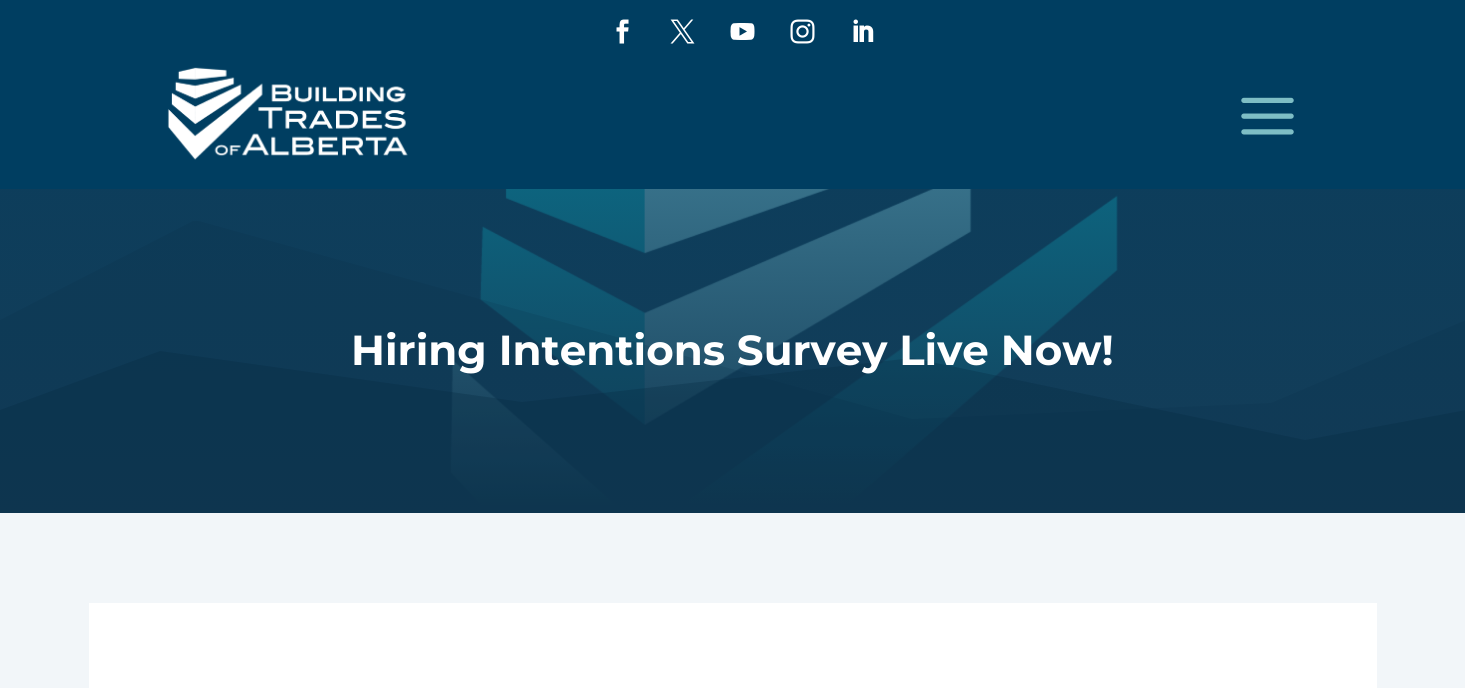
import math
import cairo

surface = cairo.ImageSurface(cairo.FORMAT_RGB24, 1465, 688)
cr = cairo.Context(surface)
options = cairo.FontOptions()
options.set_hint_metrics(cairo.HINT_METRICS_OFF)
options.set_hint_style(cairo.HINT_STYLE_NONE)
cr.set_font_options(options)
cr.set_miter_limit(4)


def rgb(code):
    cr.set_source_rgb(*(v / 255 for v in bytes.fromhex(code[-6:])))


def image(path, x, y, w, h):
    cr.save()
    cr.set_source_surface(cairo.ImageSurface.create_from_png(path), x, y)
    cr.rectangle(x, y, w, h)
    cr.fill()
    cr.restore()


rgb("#ffffff")
cr.paint()
rgb("#003e61")
cr.rectangle(0, 0, 1465, 189)
cr.fill()
image("img/1.png", 167, 67, 241, 93)
image("img/2.png", 1241, 97, 53, 38)
image("img/3.png", 616, 19, 13, 25)
image("img/4.png", 670, 19, 25, 25)
image("img/5.png", 730, 23, 25, 17)
image("img/6.png", 790, 19, 25, 25)
image("img/7.png", 853, 19, 21, 23)
image("img/8.png", 0, 189, 1465, 324)
cr.save()
cr.rectangle(0, 221, 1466, 292)
cr.clip()
cr.set_source_rgba(0.02, 0.161, 0.259, 0.3)
cr.new_path()
cr.move_to(0, 410)
cr.line_to(160, 351)
cr.line_to(522, 402)
cr.line_to(912, 358)
cr.line_to(1305, 440)
cr.line_to(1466, 410)
cr.line_to(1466, 514)
cr.line_to(0, 514)
cr.close_path()
cr.fill()
cr.restore()
rgb("#f2f6f9")
cr.rectangle(0, 513, 1465, 175)
cr.fill()
rgb("#ffffff")
cr.rectangle(89, 603, 1288, 85)
cr.fill()
cr.select_font_face("Montserrat Thin")
cr.set_font_size(42)
cr.move_to(351, 365)
cr.show_text("Hiring Intentions Survey Live Now!")
surface.write_to_png("page.png")
